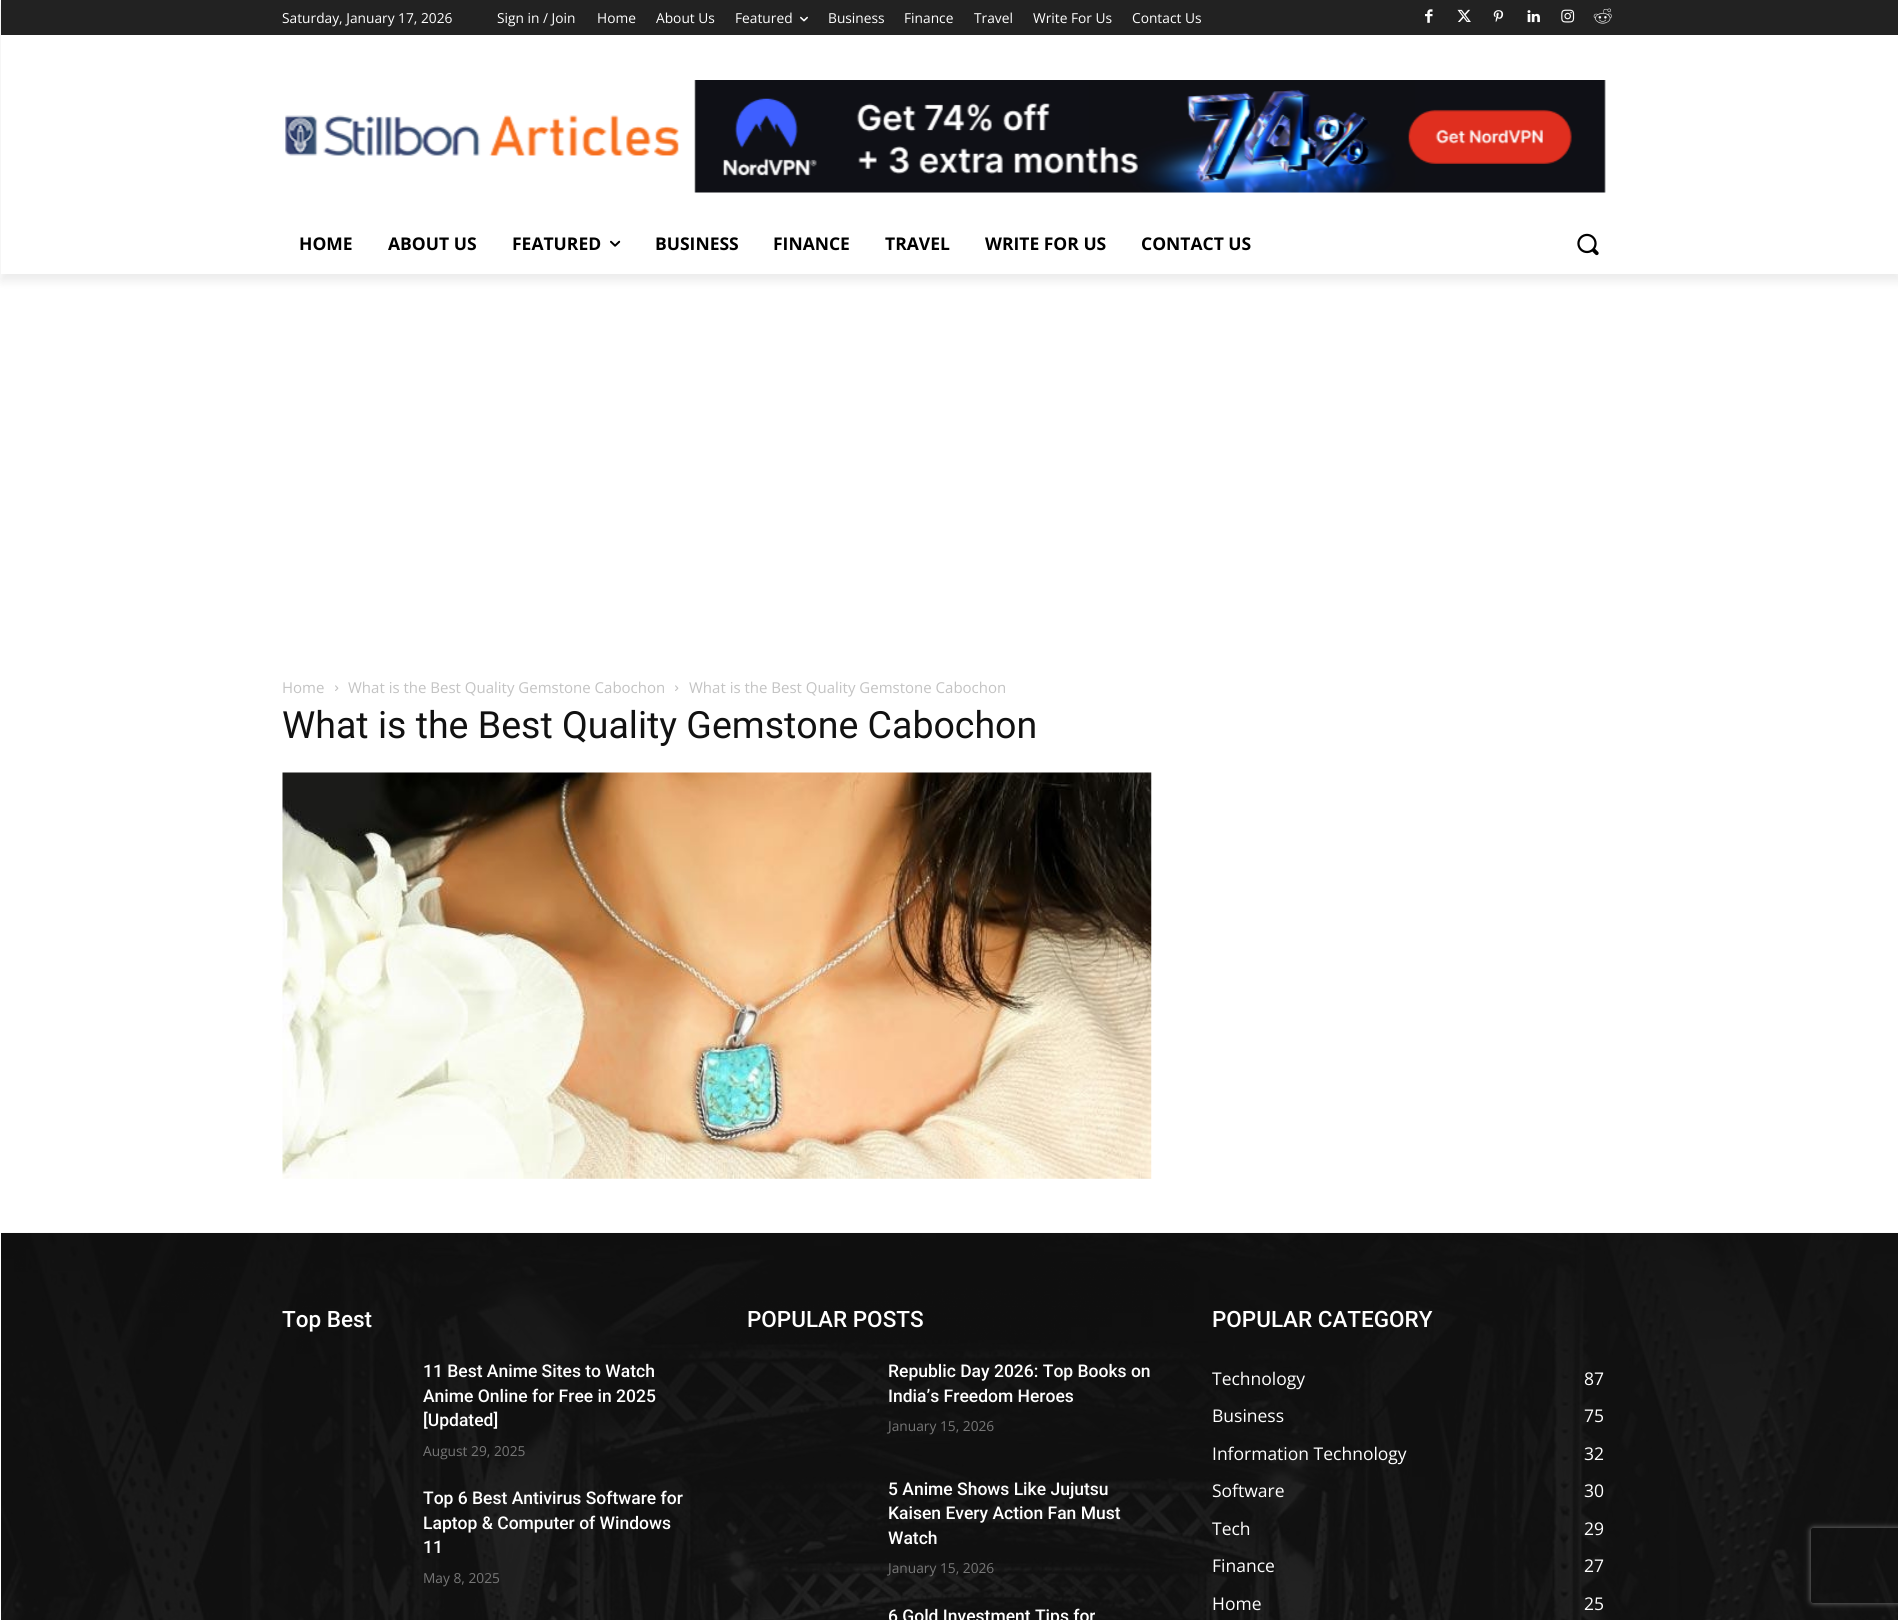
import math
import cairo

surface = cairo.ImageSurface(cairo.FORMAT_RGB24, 1898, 1620)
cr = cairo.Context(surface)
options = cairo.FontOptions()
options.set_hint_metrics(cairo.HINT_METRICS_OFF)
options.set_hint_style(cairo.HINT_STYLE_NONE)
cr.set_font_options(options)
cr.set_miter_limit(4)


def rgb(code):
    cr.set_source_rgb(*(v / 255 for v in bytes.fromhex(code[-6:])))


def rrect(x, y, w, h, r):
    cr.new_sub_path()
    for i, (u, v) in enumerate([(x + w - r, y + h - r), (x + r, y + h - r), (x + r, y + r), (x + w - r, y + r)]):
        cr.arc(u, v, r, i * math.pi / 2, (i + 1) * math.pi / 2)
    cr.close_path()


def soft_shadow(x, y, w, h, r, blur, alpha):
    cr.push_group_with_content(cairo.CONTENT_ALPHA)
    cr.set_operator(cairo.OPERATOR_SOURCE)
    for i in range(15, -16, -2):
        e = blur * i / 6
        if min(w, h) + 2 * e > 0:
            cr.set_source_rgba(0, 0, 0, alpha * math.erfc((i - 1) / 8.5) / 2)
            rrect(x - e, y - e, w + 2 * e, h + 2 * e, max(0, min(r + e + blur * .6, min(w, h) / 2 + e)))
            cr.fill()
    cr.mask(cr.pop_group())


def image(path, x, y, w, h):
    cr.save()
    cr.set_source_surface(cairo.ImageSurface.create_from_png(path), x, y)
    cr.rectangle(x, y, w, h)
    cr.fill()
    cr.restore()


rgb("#ffffff")
cr.paint()
rgb("#222222")
cr.rectangle(1, 0, 1897, 35)
cr.fill()
image("img/2.png", 1425, 9, 8, 14)
image("img/3.png", 1457, 9, 14, 13)
image("img/4.png", 1493, 10, 11, 12)
image("img/5.png", 1527, 10, 13, 13)
image("img/6.png", 1561, 9, 14, 14)
image("img/7.png", 1593, 8, 19, 16)
image("img/8.png", 285, 115, 394, 41)
image("img/9.png", 694, 80, 912, 113)
cr.save()
cr.set_fill_rule(cairo.FILL_RULE_EVEN_ODD)
cr.new_path()
cr.move_to(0, 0)
cr.line_to(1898, 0)
cr.line_to(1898, 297)
cr.line_to(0, 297)
cr.close_path()
cr.move_to(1, 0)
cr.line_to(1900, 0)
cr.line_to(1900, 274)
cr.line_to(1, 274)
cr.close_path()
cr.clip()
rgb("#000000")
soft_shadow(1, 8, 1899, 273, 0, 5, 0.08)
cr.restore()
image("img/1.png", 800, 16, 8, 6)
image("img/10.png", 610, 240, 11, 7)
image("img/11.png", 1577, 233, 22, 23)
image("img/12.png", 335, 685, 4, 6)
image("img/12.png", 675, 685, 4, 6)
image("img/13.png", 282, 772, 870, 407)
rgb("#111111")
cr.rectangle(1, 1233, 1897, 387)
cr.fill()
image("img/14.png", 1, 1232, 1897, 388)
cr.save()
cr.set_fill_rule(cairo.FILL_RULE_EVEN_ODD)
cr.new_path()
cr.move_to(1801, 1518)
cr.line_to(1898, 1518)
cr.line_to(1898, 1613)
cr.line_to(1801, 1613)
cr.close_path()
cr.move_to(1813.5, 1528)
cr.line_to(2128.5, 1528)
cr.curve_to(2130, 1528, 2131, 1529, 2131, 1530.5)
cr.line_to(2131, 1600.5)
cr.curve_to(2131, 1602, 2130, 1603, 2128.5, 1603)
cr.line_to(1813.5, 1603)
cr.curve_to(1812, 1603, 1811, 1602, 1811, 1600.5)
cr.line_to(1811, 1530.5)
cr.curve_to(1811, 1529, 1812, 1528, 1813.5, 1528)
cr.close_path()
cr.clip()
rgb("#808080")
soft_shadow(1811, 1528, 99, 75, 2.5, 3, 1)
cr.restore()
cr.select_font_face("Open Sans")
cr.set_font_size(13.75)
rgb("#ffffff")
for x, y, s in [
    (282, 23, "Saturday, January 17, 2026"),
    (497, 23, "Sign in / Join"),
    (597, 23, "Home"),
    (656, 23, "About Us"),
    (735, 23, "Featured"),
    (828, 23, "Business"),
    (904, 23, "Finance"),
    (974, 23, "Travel"),
    (1033, 23, "Write For Us"),
    (1132, 23, "Contact Us"),
]:
    cr.move_to(x, y)
    cr.show_text(s)
cr.select_font_face("Open Sans", cairo.FONT_SLANT_NORMAL, cairo.FONT_WEIGHT_BOLD)
cr.set_font_size(17.5)
rgb("#000000")
for x, y, s in [
    (299, 250, "HOME"),
    (388, 250, "ABOUT US"),
    (512, 250, "FEATURED"),
    (655, 250, "BUSINESS"),
    (773, 250, "FINANCE"),
    (885, 250, "TRAVEL"),
    (985, 250, "WRITE FOR US"),
    (1141, 250, "CONTACT US"),
]:
    cr.move_to(x, y)
    cr.show_text(s)
cr.select_font_face("Open Sans")
cr.set_font_size(15)
rgb("#c3c3c3")
for x, y, s in [
    (282, 693, "Home"),
    (348, 693, "What is the Best Quality Gemstone Cabochon"),
    (689, 693, "What is the Best Quality Gemstone Cabochon"),
]:
    cr.move_to(x, y)
    cr.show_text(s)
cr.select_font_face("Roboto")
cr.set_font_size(37.5)
rgb("#111111")
cr.move_to(282, 738)
cr.show_text("What is the Best Quality Gemstone Cabochon")
cr.select_font_face("Roboto Medium")
cr.set_font_size(22.5)
rgb("#ffffff")
cr.move_to(282, 1327)
cr.show_text("Top Best")
cr.set_font_size(17.5)
for x, y, s in [
    (423, 1377, "11 Best Anime Sites to Watch"),
    (423, 1402, "Anime Online for Free in 2025"),
    (423, 1426, "[Updated]"),
]:
    cr.move_to(x, y)
    cr.show_text(s)
cr.select_font_face("Open Sans")
cr.set_font_size(13.75)
rgb("#767676")
cr.move_to(423, 1456)
cr.show_text("August 29, 2025")
cr.select_font_face("Roboto Medium")
cr.set_font_size(17.5)
rgb("#ffffff")
for x, y, s in [
    (423, 1504, "Top 6 Best Antivirus Software for"),
    (423, 1529, "Laptop & Computer of Windows"),
    (423, 1553, "11"),
]:
    cr.move_to(x, y)
    cr.show_text(s)
cr.select_font_face("Open Sans")
cr.set_font_size(13.75)
rgb("#767676")
cr.move_to(423, 1583)
cr.show_text("May 8, 2025")
cr.select_font_face("Roboto Medium")
cr.set_font_size(22.5)
rgb("#ffffff")
cr.move_to(747, 1327)
cr.show_text("POPULAR POSTS")
cr.set_font_size(17.5)
cr.move_to(888, 1377)
cr.show_text("Republic Day 2026: Top Books on")
cr.move_to(888, 1402)
cr.show_text("India’s Freedom Heroes")
cr.select_font_face("Open Sans")
cr.set_font_size(13.75)
rgb("#767676")
cr.move_to(888, 1431)
cr.show_text("January 15, 2026")
cr.select_font_face("Roboto Medium")
cr.set_font_size(17.5)
rgb("#ffffff")
for x, y, s in [
    (888, 1495, "5 Anime Shows Like Jujutsu"),
    (888, 1519, "Kaisen Every Action Fan Must"),
    (888, 1544, "Watch"),
]:
    cr.move_to(x, y)
    cr.show_text(s)
cr.select_font_face("Open Sans")
cr.set_font_size(13.75)
rgb("#767676")
cr.move_to(888, 1573)
cr.show_text("January 15, 2026")
cr.select_font_face("Roboto Medium")
cr.set_font_size(17.5)
rgb("#ffffff")
cr.move_to(888, 1622)
cr.show_text("6 Gold Investment Tips for")
cr.set_font_size(22.5)
cr.move_to(1212, 1327)
cr.show_text("POPULAR CATEGORY")
cr.select_font_face("Open Sans")
cr.set_font_size(17.5)
for x, y, s in [
    (1212, 1385, "Technology"),
    (1584, 1385, "87"),
    (1212, 1422, "Business"),
    (1584, 1422, "75"),
    (1212, 1460, "Information Technology"),
    (1584, 1460, "32"),
    (1212, 1497, "Software"),
    (1584, 1497, "30"),
    (1212, 1535, "Tech"),
    (1584, 1535, "29"),
    (1212, 1572, "Finance"),
    (1584, 1572, "27"),
    (1212, 1610, "Home"),
    (1584, 1610, "25"),
]:
    cr.move_to(x, y)
    cr.show_text(s)
surface.write_to_png("page.png")
